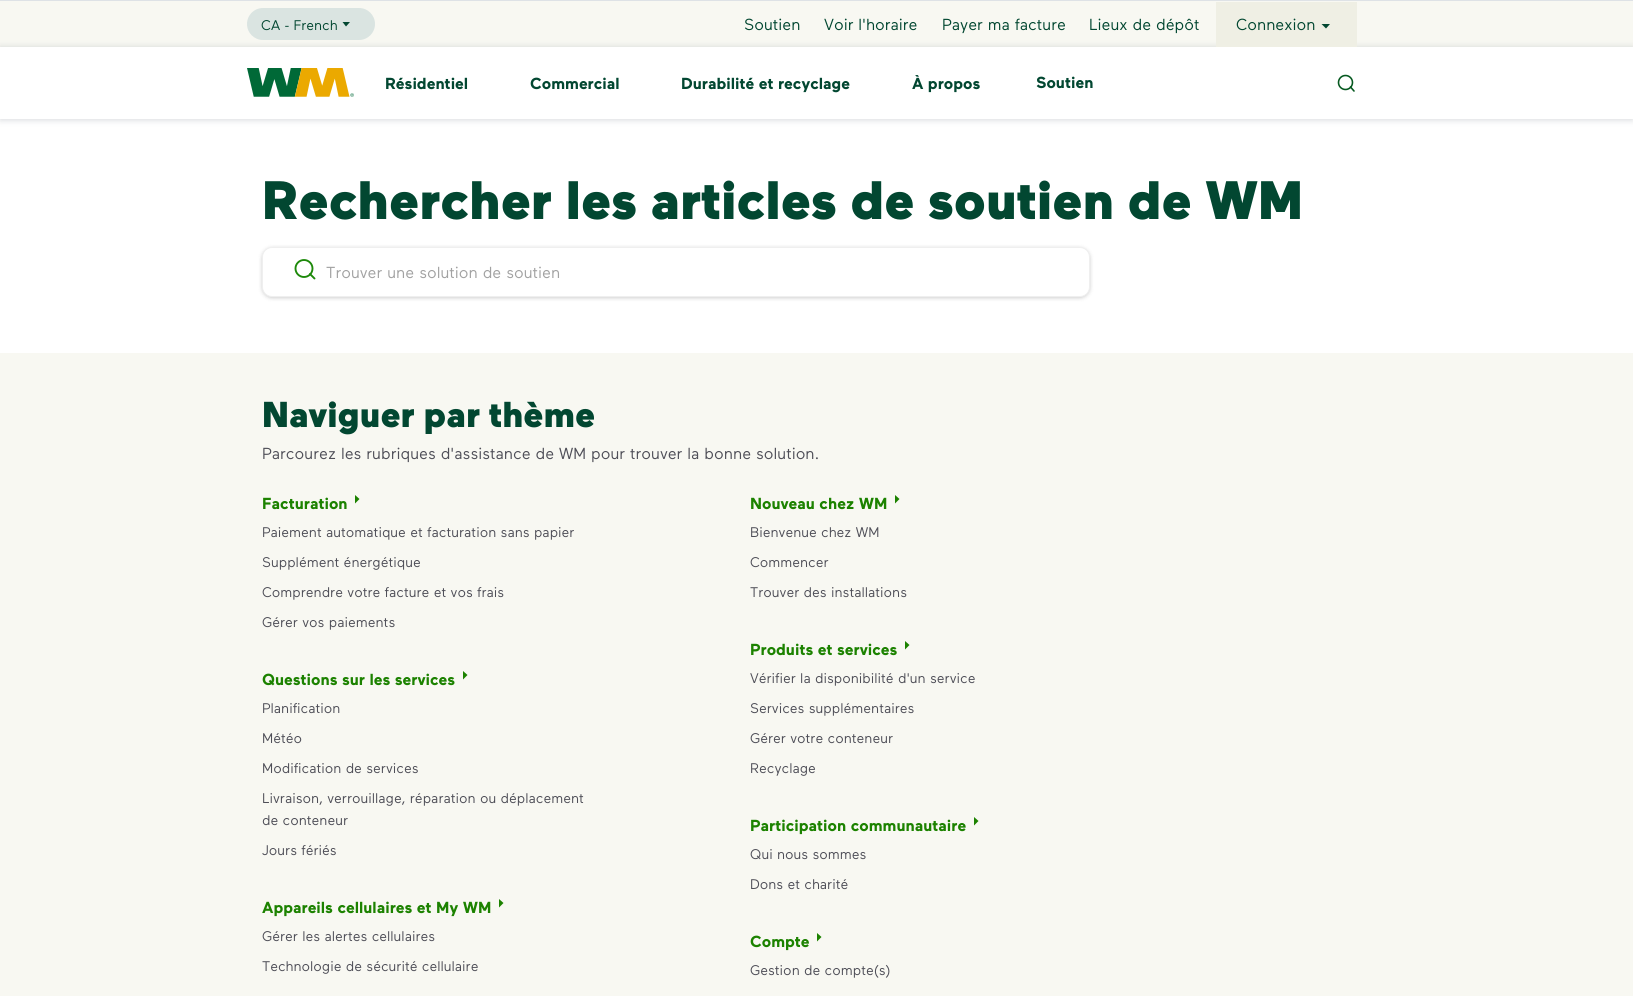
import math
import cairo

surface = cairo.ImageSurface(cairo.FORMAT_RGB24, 1633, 996)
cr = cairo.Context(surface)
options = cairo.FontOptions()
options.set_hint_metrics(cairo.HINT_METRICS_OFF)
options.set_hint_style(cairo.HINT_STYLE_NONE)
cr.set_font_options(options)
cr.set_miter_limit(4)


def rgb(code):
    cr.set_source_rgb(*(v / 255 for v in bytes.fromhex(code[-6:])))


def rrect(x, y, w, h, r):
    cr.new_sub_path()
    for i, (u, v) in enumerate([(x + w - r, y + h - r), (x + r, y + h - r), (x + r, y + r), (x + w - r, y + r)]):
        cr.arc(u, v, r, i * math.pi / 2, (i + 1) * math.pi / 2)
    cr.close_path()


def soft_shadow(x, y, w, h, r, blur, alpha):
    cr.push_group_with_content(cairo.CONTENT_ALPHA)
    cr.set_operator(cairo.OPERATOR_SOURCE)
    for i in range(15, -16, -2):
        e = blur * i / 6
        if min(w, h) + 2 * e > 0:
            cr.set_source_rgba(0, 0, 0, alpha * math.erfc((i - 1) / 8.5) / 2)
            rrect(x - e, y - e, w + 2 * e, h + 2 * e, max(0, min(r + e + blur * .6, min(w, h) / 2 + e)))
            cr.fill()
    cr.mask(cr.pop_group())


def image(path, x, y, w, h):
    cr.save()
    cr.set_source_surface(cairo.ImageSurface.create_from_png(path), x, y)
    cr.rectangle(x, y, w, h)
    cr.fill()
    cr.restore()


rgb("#ffffff")
cr.paint()
rgb("#dee2e6")
cr.rectangle(0, 0, 1633, 1)
cr.fill()
rgb("#f8f8f2")
cr.rectangle(0, 1, 1633, 46)
cr.fill()
cr.save()
cr.set_fill_rule(cairo.FILL_RULE_EVEN_ODD)
cr.new_path()
cr.move_to(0, 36)
cr.line_to(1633, 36)
cr.line_to(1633, 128)
cr.line_to(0, 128)
cr.close_path()
cr.move_to(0, 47)
cr.line_to(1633, 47)
cr.line_to(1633, 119)
cr.line_to(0, 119)
cr.close_path()
cr.clip()
rgb("#b0b6ba")
soft_shadow(0, 46, 1633, 72, 0, 3, 0.3)
cr.restore()
cr.save()
cr.set_fill_rule(cairo.FILL_RULE_EVEN_ODD)
cr.new_path()
cr.move_to(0, 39)
cr.line_to(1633, 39)
cr.line_to(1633, 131)
cr.line_to(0, 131)
cr.close_path()
cr.move_to(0, 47)
cr.line_to(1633, 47)
cr.line_to(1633, 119)
cr.line_to(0, 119)
cr.close_path()
cr.clip()
rgb("#b0b6ba")
soft_shadow(0, 49, 1633, 72, 0, 3, 0.3)
cr.restore()
rgb("#dae4e1")
rrect(247, 8, 128, 32, 16)
cr.fill()
rgb("#024731")
cr.set_fill_rule(cairo.FILL_RULE_EVEN_ODD)
cr.new_path()
cr.move_to(342.5, 22)
cr.line_to(346, 26.5)
cr.line_to(350, 22)
cr.close_path()
cr.fill()
rgb("#efefe4")
cr.rectangle(1216, 2, 141, 45)
cr.fill()
rgb("#024731")
cr.new_path()
cr.move_to(1321.5, 24)
cr.line_to(1326, 28.5)
cr.line_to(1330, 24)
cr.close_path()
cr.fill()
image("img/1.png", 247, 68, 107, 29)
cr.arc(1345.5, 82.5, 7, 0, 2 * math.pi)
rgb("#065920")
cr.set_line_width(1.6)
cr.stroke()
cr.new_path()
cr.move_to(1354, 91)
cr.line_to(1350.5, 87)
cr.set_line_cap(cairo.LINE_CAP_ROUND)
cr.set_line_join(cairo.LINE_JOIN_ROUND)
cr.stroke()
rgb("#000000")
soft_shadow(262, 248, 828, 50, 10, 2, 0.2)
rgb("#ffffff")
rrect(262.5, 247.5, 827, 49, 9.5)
cr.fill_preserve()
rgb("#efefef")
cr.set_line_width(1)
cr.set_line_cap(cairo.LINE_CAP_BUTT)
cr.set_line_join(cairo.LINE_JOIN_MITER)
cr.stroke()
cr.arc(304, 268.5, 8.5, 0, 2 * math.pi)
rgb("#1d890a")
cr.set_line_width(1.9)
cr.stroke()
cr.new_path()
cr.move_to(314.5, 278.5)
cr.line_to(310, 274)
cr.set_line_cap(cairo.LINE_CAP_ROUND)
cr.set_line_join(cairo.LINE_JOIN_ROUND)
cr.stroke()
rgb("#f8f8f2")
cr.rectangle(0, 353, 1633, 643)
cr.fill()
rgb("#1c8200")
cr.new_path()
cr.move_to(355, 503.5)
cr.line_to(359.5, 499)
cr.line_to(355, 495)
cr.close_path()
cr.fill()
cr.new_path()
cr.move_to(463, 679.5)
cr.line_to(467.5, 675)
cr.line_to(463, 671)
cr.close_path()
cr.fill()
cr.new_path()
cr.move_to(499, 907.5)
cr.line_to(503.5, 903)
cr.line_to(499, 899)
cr.close_path()
cr.fill()
cr.new_path()
cr.move_to(895, 503.5)
cr.line_to(899.5, 499)
cr.line_to(895, 495)
cr.close_path()
cr.fill()
cr.new_path()
cr.move_to(905, 649.5)
cr.line_to(909.5, 645)
cr.line_to(905, 641)
cr.close_path()
cr.fill()
cr.new_path()
cr.move_to(974, 825.5)
cr.line_to(978.5, 821)
cr.line_to(974, 817)
cr.close_path()
cr.fill()
cr.new_path()
cr.move_to(817, 941.5)
cr.line_to(821.5, 937)
cr.line_to(817, 933)
cr.close_path()
cr.fill()
cr.select_font_face("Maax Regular")
cr.set_font_size(14)
rgb("#024731")
cr.move_to(261, 30)
cr.show_text("CA - French")
cr.set_font_size(16)
for x, y, s in [
    (744, 30, "Soutien"),
    (824, 30, "Voir l'horaire"),
    (942, 30, "Payer ma facture"),
    (1089, 30, "Lieux de dépôt"),
    (1236, 30, "Connexion"),
]:
    cr.move_to(x, y)
    cr.show_text(s)
cr.select_font_face("Maax Regular", cairo.FONT_SLANT_NORMAL, cairo.FONT_WEIGHT_BOLD)
for x, y, s in [
    (385, 89, "Résidentiel"),
    (530, 89, "Commercial"),
    (681, 89, "Durabilité et recyclage"),
    (912, 89, "À propos"),
    (1036, 88, "Soutien"),
]:
    cr.move_to(x, y)
    cr.show_text(s)
cr.select_font_face("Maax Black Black")
cr.set_font_size(54)
cr.move_to(262, 219)
cr.show_text("Rechercher les articles de soutien de WM")
cr.select_font_face("Maax Regular")
cr.set_font_size(16)
rgb("#a2a2a2")
cr.move_to(326, 278)
cr.show_text("Trouver une solution de soutien")
cr.select_font_face("Maax Black Black")
cr.set_font_size(36)
rgb("#024731")
cr.move_to(262, 427)
cr.show_text("Naviguer par thème")
cr.select_font_face("Maax Regular")
cr.set_font_size(16)
rgb("#4f4f58")
cr.move_to(262, 459)
cr.show_text("Parcourez les rubriques d'assistance de WM pour trouver la bonne solution.")
cr.select_font_face("Maax Regular", cairo.FONT_SLANT_NORMAL, cairo.FONT_WEIGHT_BOLD)
rgb("#1c8200")
cr.move_to(262, 509)
cr.show_text("Facturation")
cr.select_font_face("Maax Regular")
cr.set_font_size(14)
rgb("#4f4f58")
for x, y, s in [
    (262, 537, "Paiement automatique et facturation sans papier"),
    (262, 567, "Supplément énergétique"),
    (262, 597, "Comprendre votre facture et vos frais"),
    (262, 627, "Gérer vos paiements"),
]:
    cr.move_to(x, y)
    cr.show_text(s)
cr.select_font_face("Maax Regular", cairo.FONT_SLANT_NORMAL, cairo.FONT_WEIGHT_BOLD)
cr.set_font_size(16)
rgb("#1c8200")
cr.move_to(262, 685)
cr.show_text("Questions sur les services")
cr.select_font_face("Maax Regular")
cr.set_font_size(14)
rgb("#4f4f58")
for x, y, s in [
    (262, 713, "Planification"),
    (262, 743, "Météo"),
    (262, 773, "Modification de services"),
    (262, 803, "Livraison, verrouillage, réparation ou déplacement"),
    (262, 825, "de conteneur"),
    (262, 855, "Jours fériés"),
]:
    cr.move_to(x, y)
    cr.show_text(s)
cr.select_font_face("Maax Regular", cairo.FONT_SLANT_NORMAL, cairo.FONT_WEIGHT_BOLD)
cr.set_font_size(16)
rgb("#1c8200")
cr.move_to(262, 913)
cr.show_text("Appareils cellulaires et My WM")
cr.select_font_face("Maax Regular")
cr.set_font_size(14)
rgb("#4f4f58")
cr.move_to(262, 941)
cr.show_text("Gérer les alertes cellulaires")
cr.move_to(262, 971)
cr.show_text("Technologie de sécurité cellulaire")
cr.select_font_face("Maax Regular", cairo.FONT_SLANT_NORMAL, cairo.FONT_WEIGHT_BOLD)
cr.set_font_size(16)
rgb("#1c8200")
cr.move_to(750, 509)
cr.show_text("Nouveau chez WM")
cr.select_font_face("Maax Regular")
cr.set_font_size(14)
rgb("#4f4f58")
for x, y, s in [
    (750, 537, "Bienvenue chez WM"),
    (750, 567, "Commencer"),
    (750, 597, "Trouver des installations"),
]:
    cr.move_to(x, y)
    cr.show_text(s)
cr.select_font_face("Maax Regular", cairo.FONT_SLANT_NORMAL, cairo.FONT_WEIGHT_BOLD)
cr.set_font_size(16)
rgb("#1c8200")
cr.move_to(750, 655)
cr.show_text("Produits et services")
cr.select_font_face("Maax Regular")
cr.set_font_size(14)
rgb("#4f4f58")
for x, y, s in [
    (750, 683, "Vérifier la disponibilité d'un service"),
    (750, 713, "Services supplémentaires"),
    (750, 743, "Gérer votre conteneur"),
    (750, 773, "Recyclage"),
]:
    cr.move_to(x, y)
    cr.show_text(s)
cr.select_font_face("Maax Regular", cairo.FONT_SLANT_NORMAL, cairo.FONT_WEIGHT_BOLD)
cr.set_font_size(16)
rgb("#1c8200")
cr.move_to(750, 831)
cr.show_text("Participation communautaire")
cr.select_font_face("Maax Regular")
cr.set_font_size(14)
rgb("#4f4f58")
cr.move_to(750, 859)
cr.show_text("Qui nous sommes")
cr.move_to(750, 889)
cr.show_text("Dons et charité")
cr.select_font_face("Maax Regular", cairo.FONT_SLANT_NORMAL, cairo.FONT_WEIGHT_BOLD)
cr.set_font_size(16)
rgb("#1c8200")
cr.move_to(750, 947)
cr.show_text("Compte")
cr.select_font_face("Maax Regular")
cr.set_font_size(14)
rgb("#4f4f58")
cr.move_to(750, 975)
cr.show_text("Gestion de compte(s)")
surface.write_to_png("page.png")
